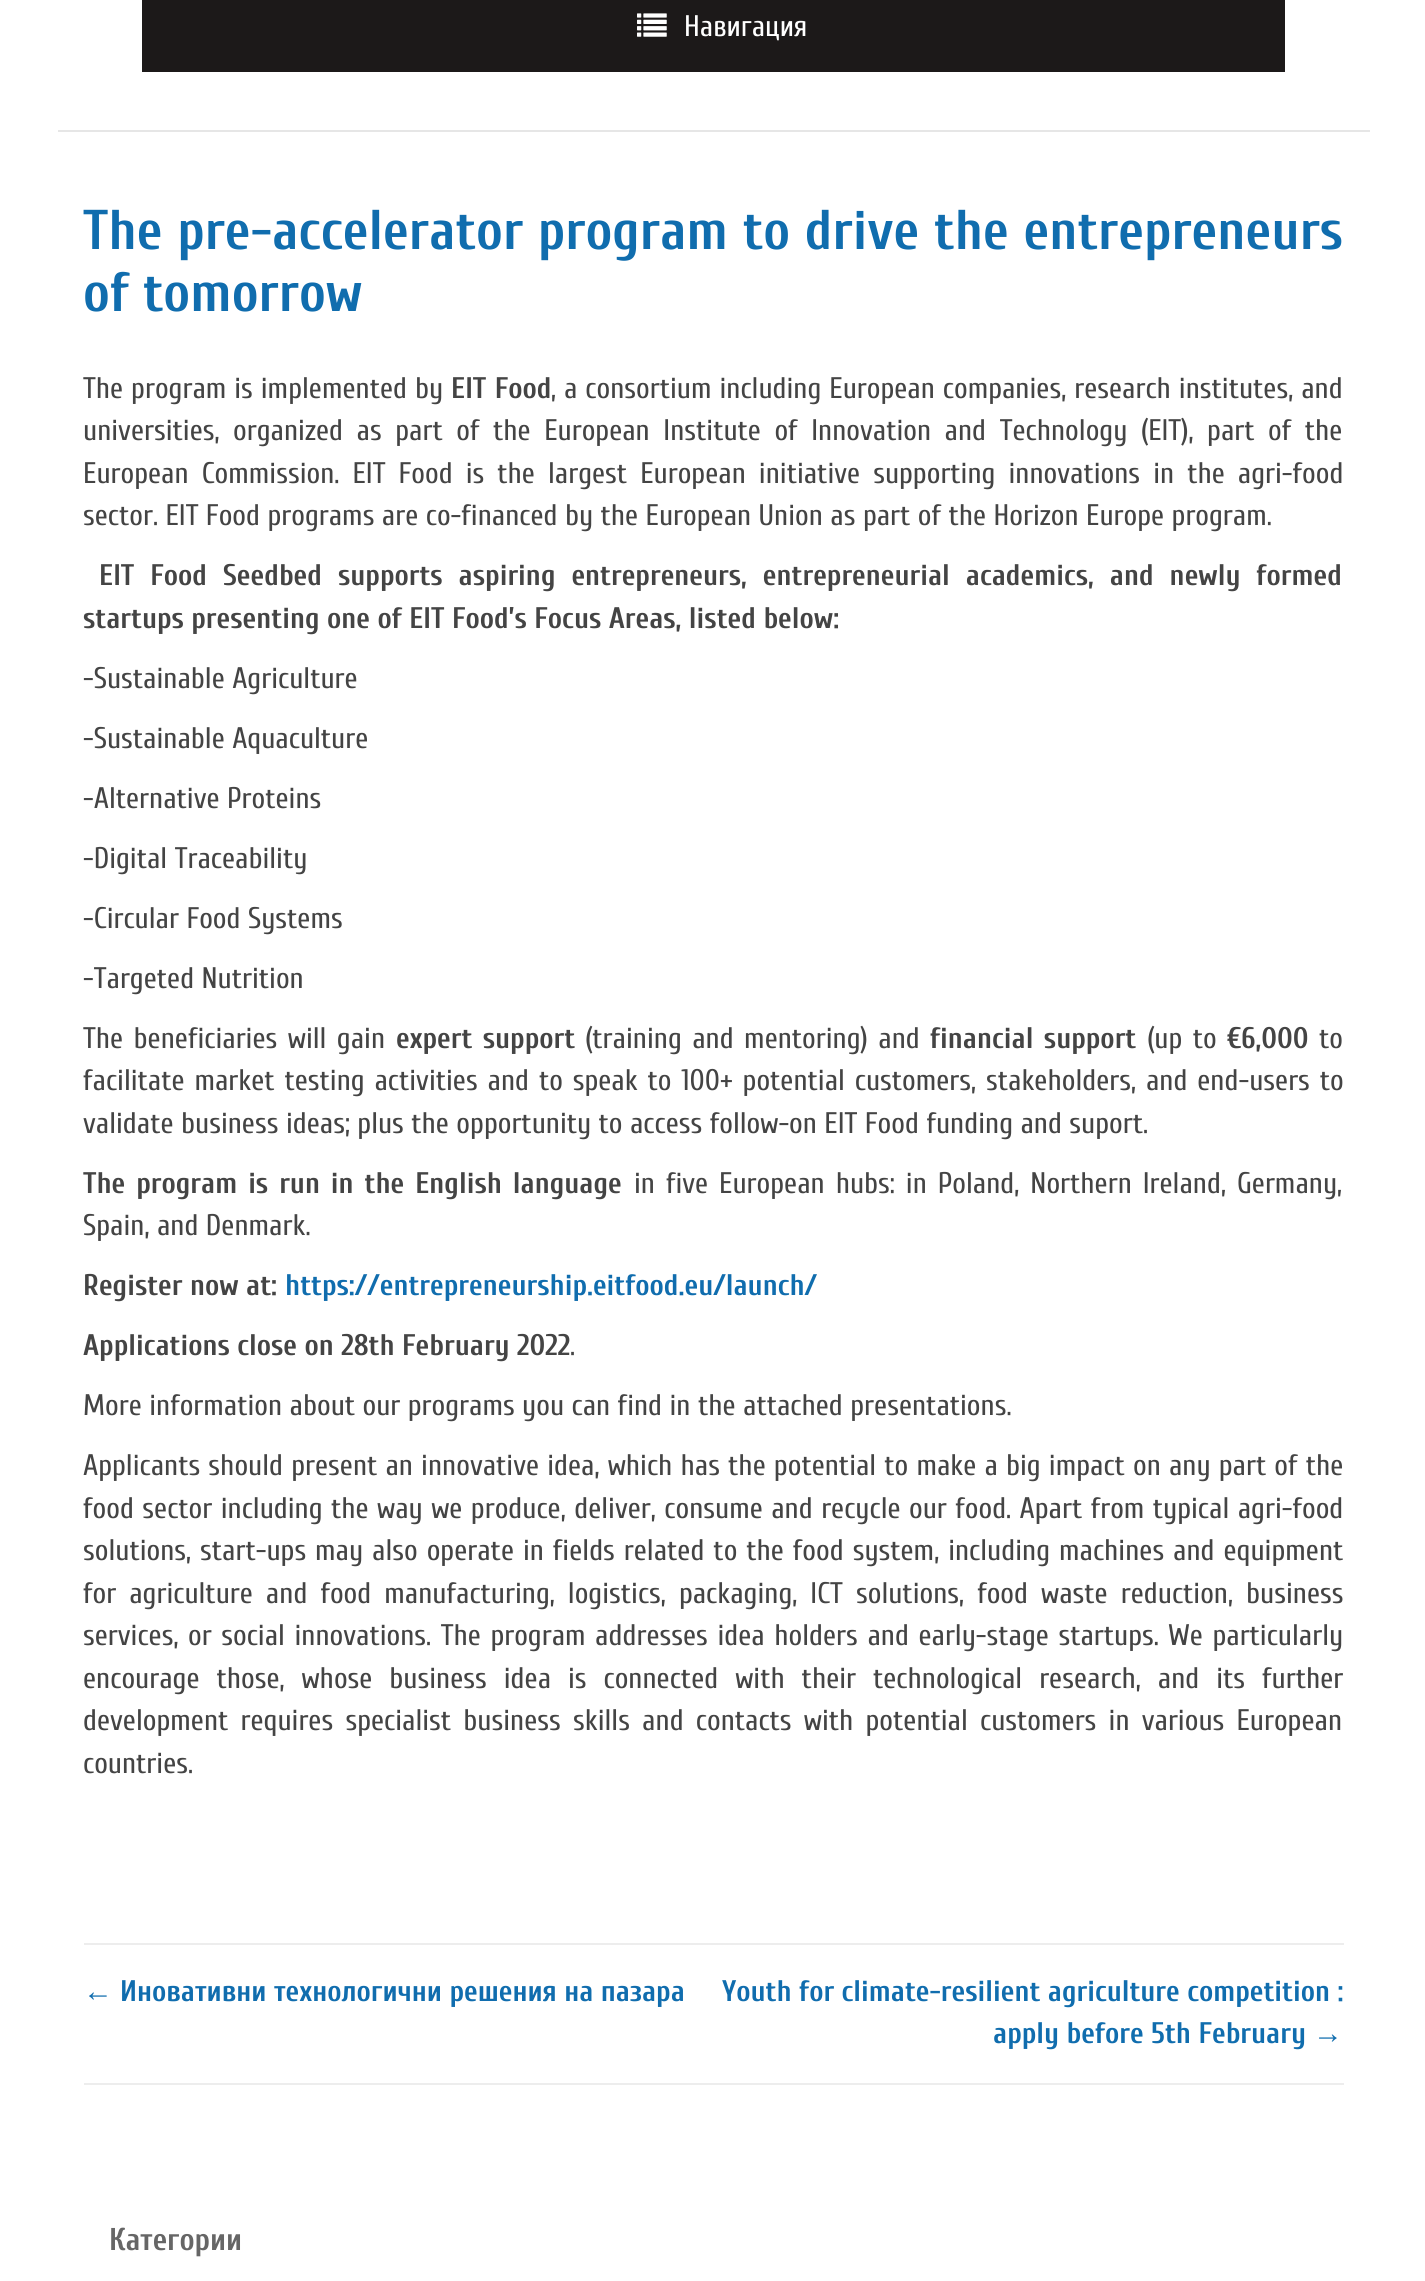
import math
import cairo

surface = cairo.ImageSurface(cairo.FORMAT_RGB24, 1425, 2281)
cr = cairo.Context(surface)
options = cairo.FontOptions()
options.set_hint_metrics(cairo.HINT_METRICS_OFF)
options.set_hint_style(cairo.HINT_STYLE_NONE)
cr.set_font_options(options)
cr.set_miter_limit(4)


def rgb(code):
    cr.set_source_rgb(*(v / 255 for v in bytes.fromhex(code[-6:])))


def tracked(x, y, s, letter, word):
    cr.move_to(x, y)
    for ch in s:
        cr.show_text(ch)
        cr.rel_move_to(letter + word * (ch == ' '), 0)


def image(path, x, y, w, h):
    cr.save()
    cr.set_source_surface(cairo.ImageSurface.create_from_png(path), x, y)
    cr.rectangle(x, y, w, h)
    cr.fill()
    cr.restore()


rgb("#ffffff")
cr.paint()
rgb("#e6e6e6")
cr.rectangle(58, 130, 1312, 2)
cr.fill()
rgb("#1c1919")
cr.rectangle(142, 0, 1143, 72)
cr.fill()
image("img/1.png", 637, 13, 30, 24)
rgb("#ededed")
cr.rectangle(84, 1943, 1260, 2)
cr.fill()
cr.rectangle(84, 2083, 1260, 2)
cr.fill()
cr.select_font_face("Cuprum")
cr.set_font_size(29.75)
rgb("#ffffff")
cr.move_to(684, 36)
cr.show_text("Навигация")
cr.select_font_face("Cuprum", cairo.FONT_SLANT_NORMAL, cairo.FONT_WEIGHT_BOLD)
cr.set_font_size(56)
rgb("#106dae")
tracked(83, 249, "The pre-accelerator program to drive the entrepreneurs", 0, 0.75)
cr.move_to(83, 311)
cr.show_text("of tomorrow")
cr.select_font_face("Cuprum")
cr.set_font_size(29.75)
rgb("#444444")
tracked(83, 398, "The program is implemented by", 0, 0.5)
cr.select_font_face("Cuprum", cairo.FONT_SLANT_NORMAL, cairo.FONT_WEIGHT_BOLD)
tracked(451, 398, "EIT Food", 0, 1)
cr.select_font_face("Cuprum")
tracked(551, 398, ", a consortium including European companies, research institutes, and", 0, 0.5)
tracked(83, 440, "universities, organized as part of the European Institute of Innovation and Technology (EIT), part of the", 0, 6.1)
tracked(83, 483, "European Commission. EIT Food is the largest European initiative supporting innovations in the agri-food", 0, 5.6)
cr.move_to(83, 525)
cr.show_text("sector. EIT Food programs are co-financed by the European Union as part of the Horizon Europe program.")
cr.select_font_face("Cuprum", cairo.FONT_SLANT_NORMAL, cairo.FONT_WEIGHT_BOLD)
tracked(99, 585, "EIT Food Seedbed supports aspiring entrepreneurs, entrepreneurial academics, and newly formed", 0, 8.5)
cr.move_to(83, 628)
cr.show_text("startups presenting one of EIT Food’s Focus Areas, listed below:")
cr.select_font_face("Cuprum")
for x, y, s in [
    (83, 688, "-Sustainable Agriculture"),
    (83, 748, "-Sustainable Aquaculture"),
    (83, 808, "-Alternative Proteins"),
    (83, 868, "-Digital Traceability"),
    (83, 928, "-Circular Food Systems"),
    (83, 988, "-Targeted Nutrition"),
]:
    cr.move_to(x, y)
    cr.show_text(s)
tracked(83, 1048, "The beneficiaries will gain", 0, 3)
cr.select_font_face("Cuprum", cairo.FONT_SLANT_NORMAL, cairo.FONT_WEIGHT_BOLD)
tracked(396, 1048, "expert support", 0, 3)
cr.select_font_face("Cuprum")
tracked(585, 1048, "(training and mentoring) and", 0, 3)
cr.select_font_face("Cuprum", cairo.FONT_SLANT_NORMAL, cairo.FONT_WEIGHT_BOLD)
tracked(930, 1048, "financial support", 0, 3)
cr.select_font_face("Cuprum")
tracked(1147, 1048, "(up to", 0, 3)
cr.select_font_face("Cuprum", cairo.FONT_SLANT_NORMAL, cairo.FONT_WEIGHT_BOLD)
cr.move_to(1227, 1048)
cr.show_text("€6,000")
cr.select_font_face("Cuprum")
cr.move_to(1319, 1048)
cr.show_text("to")
tracked(83, 1090, "facilitate market testing activities and to speak to 100+ potential customers, stakeholders, and end-users to", 0, 2.4)
cr.move_to(83, 1133)
cr.show_text("validate business ideas; plus the opportunity to access follow-on EIT Food funding and suport.")
cr.select_font_face("Cuprum", cairo.FONT_SLANT_NORMAL, cairo.FONT_WEIGHT_BOLD)
tracked(83, 1193, "The program is run in the English language", 0, 3.5)
cr.select_font_face("Cuprum")
tracked(634, 1193, "in five European hubs: in Poland, Northern Ireland, Germany,", 0, 3.5)
cr.move_to(83, 1235)
cr.show_text("Spain, and Denmark.")
cr.select_font_face("Cuprum", cairo.FONT_SLANT_NORMAL, cairo.FONT_WEIGHT_BOLD)
cr.move_to(83, 1295)
cr.show_text("Register now at:")
rgb("#106dae")
cr.move_to(285, 1295)
cr.show_text("https://entrepreneurship.eitfood.eu/launch/")
rgb("#444444")
cr.move_to(83, 1355)
cr.show_text("Applications close on 28th February 2022")
cr.select_font_face("Cuprum")
cr.move_to(570, 1355)
cr.show_text(".")
cr.move_to(83, 1415)
cr.show_text("More information about our programs you can find in the attached presentations.")
tracked(83, 1475, "Applicants should present an innovative idea, which has the potential to make a big impact on any part of the", 0, 0.7)
tracked(83, 1518, "food sector including the way we produce, deliver, consume and recycle our food. Apart from typical agri-food", 0, 1)
tracked(83, 1560, "solutions, start-ups may also operate in fields related to the food system, including machines and equipment", 0, 1.5)
tracked(83, 1603, "for agriculture and food manufacturing, logistics, packaging, ICT solutions, food waste reduction, business", 0, 5.6)
tracked(83, 1645, "services, or social innovations. The program addresses idea holders and early-stage startups. We particularly", 0, 2.1)
tracked(83, 1688, "encourage those, whose business idea is connected with their technological research, and its further", 0, 9.5)
tracked(83, 1730, "development requires specialist business skills and contacts with potential customers in various European", 0, 4.75)
cr.move_to(83, 1773)
cr.show_text("countries.")
cr.select_font_face("Liberation Sans", cairo.FONT_SLANT_NORMAL, cairo.FONT_WEIGHT_BOLD)
rgb("#106dae")
cr.move_to(83, 2001)
cr.show_text("←")
cr.select_font_face("Cuprum", cairo.FONT_SLANT_NORMAL, cairo.FONT_WEIGHT_BOLD)
for x, y, s in [
    (120, 2001, "Иновативни технологични решения на пазара"),
    (722, 2001, "Youth for climate-resilient agriculture competition :"),
    (993, 2043, "apply before 5th February"),
]:
    cr.move_to(x, y)
    cr.show_text(s)
cr.select_font_face("Liberation Sans", cairo.FONT_SLANT_NORMAL, cairo.FONT_WEIGHT_BOLD)
cr.move_to(1313, 2043)
cr.show_text("→")
cr.select_font_face("Cuprum", cairo.FONT_SLANT_NORMAL, cairo.FONT_WEIGHT_BOLD)
cr.set_font_size(31.5)
rgb("#666666")
cr.move_to(109, 2250)
cr.show_text("Категории")
surface.write_to_png("page.png")
